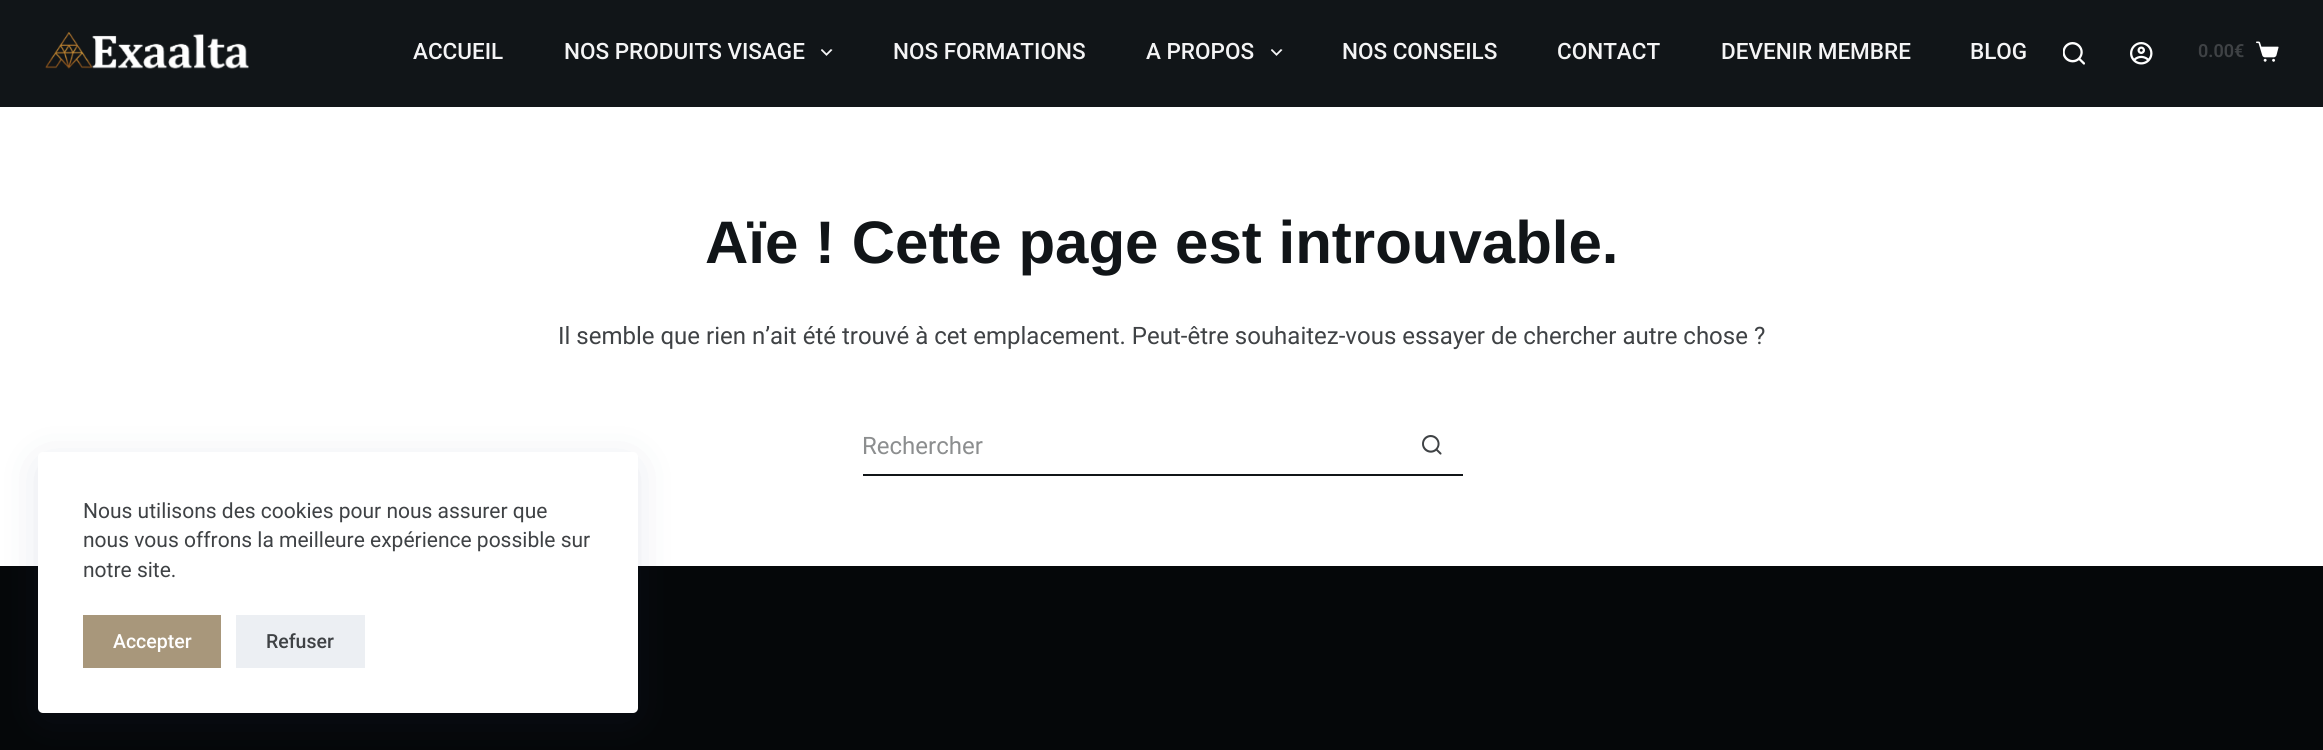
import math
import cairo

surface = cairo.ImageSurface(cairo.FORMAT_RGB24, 2323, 750)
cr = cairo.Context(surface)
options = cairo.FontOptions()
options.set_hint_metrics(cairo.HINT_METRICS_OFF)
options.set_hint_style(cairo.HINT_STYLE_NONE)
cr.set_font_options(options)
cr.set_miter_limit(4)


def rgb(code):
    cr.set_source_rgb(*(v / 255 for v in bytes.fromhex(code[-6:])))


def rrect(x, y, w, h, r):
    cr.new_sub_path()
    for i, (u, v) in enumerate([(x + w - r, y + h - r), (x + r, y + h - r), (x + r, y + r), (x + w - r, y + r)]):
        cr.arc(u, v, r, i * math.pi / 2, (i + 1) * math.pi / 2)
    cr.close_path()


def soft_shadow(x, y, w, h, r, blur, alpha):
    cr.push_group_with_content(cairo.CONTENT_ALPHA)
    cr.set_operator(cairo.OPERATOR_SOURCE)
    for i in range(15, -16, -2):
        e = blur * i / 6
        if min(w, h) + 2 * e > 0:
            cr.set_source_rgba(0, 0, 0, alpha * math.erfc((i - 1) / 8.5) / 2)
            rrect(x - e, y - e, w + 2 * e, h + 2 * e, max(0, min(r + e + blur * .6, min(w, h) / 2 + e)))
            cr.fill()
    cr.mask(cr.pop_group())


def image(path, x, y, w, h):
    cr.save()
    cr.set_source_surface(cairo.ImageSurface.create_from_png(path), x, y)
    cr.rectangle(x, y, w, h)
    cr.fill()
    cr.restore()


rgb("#ffffff")
cr.paint()
rgb("#111518")
cr.rectangle(0, 0, 2323, 107)
cr.fill()
image("img/1.png", 45, 32, 204, 37)
image("img/2.png", 821, 49, 12, 7)
image("img/2.png", 1271, 49, 12, 7)
image("img/3.png", 2063, 42, 22, 23)
image("img/4.png", 2130, 42, 23, 23)
image("img/5.png", 2256, 41, 23, 21)
cr.rectangle(863, 474, 600, 2)
cr.fill()
image("img/6.png", 1422, 435, 20, 20)
rgb("#050709")
cr.rectangle(0, 566, 2323, 184)
cr.fill()
rgb("#223865")
soft_shadow(45, 467, 585, 246, 0, 22.5, 0.15)
rgb("#ffffff")
rrect(38, 452, 600, 261, 5)
cr.fill()
rgb("#a8977b")
cr.rectangle(83, 615, 138, 53)
cr.fill()
rgb("#eceff3")
cr.rectangle(236, 615, 129, 53)
cr.fill()
cr.select_font_face("Roboto Medium")
cr.set_font_size(22.5)
rgb("#f4f4f5")
for x, y, s in [
    (413, 59, "ACCUEIL"),
    (564, 59, "NOS PRODUITS VISAGE"),
    (893, 59, "NOS FORMATIONS"),
    (1146, 59, "A PROPOS"),
    (1342, 59, "NOS CONSEILS"),
    (1557, 59, "CONTACT"),
    (1721, 59, "DEVENIR MEMBRE"),
    (1970, 59, "BLOG"),
]:
    cr.move_to(x, y)
    cr.show_text(s)
cr.select_font_face("Roboto SemiBold")
cr.set_font_size(18)
rgb("#3f4245")
cr.move_to(2198, 57)
cr.show_text("0.00€")
cr.select_font_face("Liberation Sans", cairo.FONT_SLANT_NORMAL, cairo.FONT_WEIGHT_BOLD)
cr.set_font_size(60)
rgb("#111518")
cr.move_to(705, 263)
cr.show_text("Aïe ! Cette page est introuvable.")
cr.select_font_face("Roboto")
cr.set_font_size(24)
rgb("#3f4245")
cr.move_to(558, 344)
cr.show_text("Il semble que rien n’ait été trouvé à cet emplacement. Peut-être souhaitez-vous essayer de chercher autre chose ?")
rgb("#8c8e8f")
cr.move_to(862, 454)
cr.show_text("Rechercher")
cr.set_font_size(21)
rgb("#3f4245")
for x, y, s in [
    (83, 518, "Nous utilisons des cookies pour nous assurer que"),
    (83, 547, "nous vous offrons la meilleure expérience possible sur"),
    (83, 577, "notre site."),
]:
    cr.move_to(x, y)
    cr.show_text(s)
cr.select_font_face("Roboto Medium")
cr.set_font_size(19.5)
rgb("#ffffff")
cr.move_to(113, 648)
cr.show_text("Accepter")
rgb("#3f4245")
cr.move_to(266, 648)
cr.show_text("Refuser")
surface.write_to_png("page.png")
